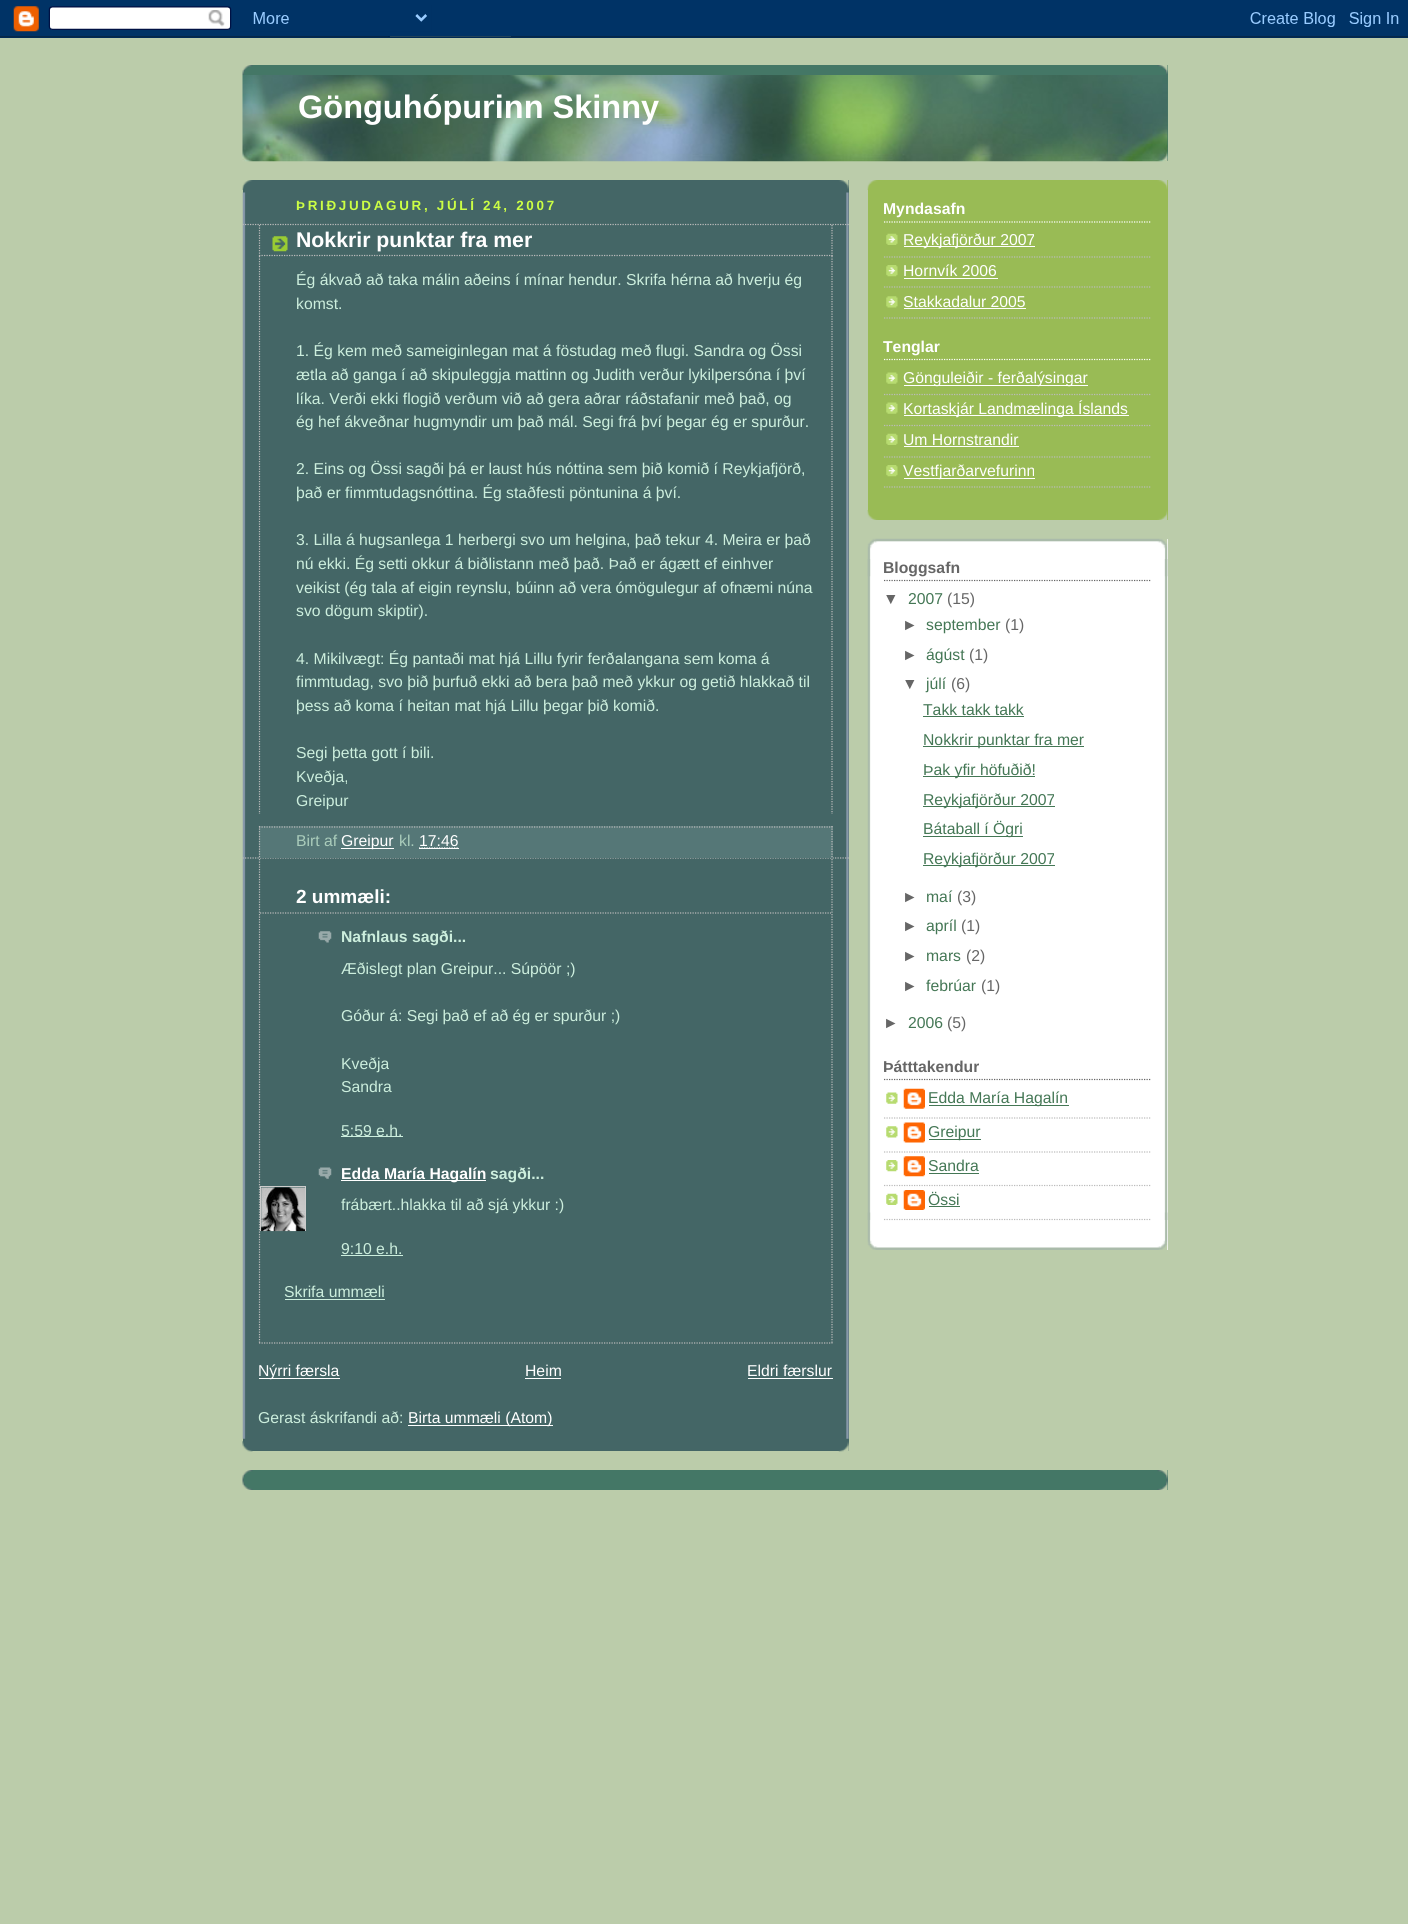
import math
import cairo

surface = cairo.ImageSurface(cairo.FORMAT_RGB24, 1408, 1924)
cr = cairo.Context(surface)
options = cairo.FontOptions()
options.set_hint_metrics(cairo.HINT_METRICS_OFF)
options.set_hint_style(cairo.HINT_STYLE_NONE)
cr.set_font_options(options)
cr.set_miter_limit(4)


def rgb(code):
    cr.set_source_rgb(*(v / 255 for v in bytes.fromhex(code[-6:])))


def tracked(x, y, s, letter, word):
    cr.move_to(x, y)
    for ch in s:
        cr.show_text(ch)
        cr.rel_move_to(letter + word * (ch == ' '), 0)


def image(path, x, y, w, h):
    cr.save()
    cr.set_source_surface(cairo.ImageSurface.create_from_png(path), x, y)
    cr.rectangle(x, y, w, h)
    cr.fill()
    cr.restore()


rgb("#bbccaa")
cr.paint()
image("img/1.png", 0, 0, 1408, 38)
rgb("#447766")
cr.rectangle(243, 65, 925, 96)
cr.fill()
image("img/2.png", 242, 65, 926, 10)
image("img/3.png", 242, 75, 926, 87)
rgb("#446666")
cr.rectangle(243, 180, 606, 1271)
cr.fill()
image("img/4.png", 242, 1441, 607, 11)
image("img/5.png", 242, 180, 607, 10)
image("img/6.png", 242, 192, 607, 1247)
cr.new_path()
cr.move_to(242.5, 224.5)
cr.line_to(849, 224.5)
rgb("#bbbbbb")
cr.set_line_width(1.2)
cr.set_dash([1.25, 1.25])
cr.stroke()
cr.new_path()
cr.move_to(242.5, 858)
cr.line_to(849, 858)
cr.stroke()
image("img/7.png", 272, 236, 16, 16)
cr.new_path()
cr.move_to(832, 225)
cr.line_to(832, 256)
cr.stroke()
cr.new_path()
cr.move_to(259, 255.5)
cr.line_to(832.5, 255.5)
cr.stroke()
cr.new_path()
cr.move_to(259.5, 225)
cr.line_to(259.5, 256)
cr.stroke()
cr.new_path()
cr.move_to(832, 256)
cr.line_to(832, 814)
cr.stroke()
cr.new_path()
cr.move_to(259.5, 256)
cr.line_to(259.5, 814)
cr.stroke()
rgb("#557777")
cr.rectangle(259, 826, 574, 32)
cr.fill()
cr.new_path()
cr.move_to(259, 827)
cr.line_to(832.5, 827)
rgb("#bbbbbb")
cr.stroke()
cr.new_path()
cr.move_to(832, 826)
cr.line_to(832, 857.5)
cr.stroke()
cr.new_path()
cr.move_to(259.5, 826)
cr.line_to(259.5, 857.5)
cr.stroke()
rgb("#ffffff")
cr.rectangle(341, 848, 53, 1)
cr.fill()
cr.new_path()
cr.move_to(419, 848)
cr.line_to(458.5, 848)
cr.stroke()
cr.rectangle(419, 848, 40, 1)
cr.fill()
cr.new_path()
cr.move_to(832, 859)
cr.line_to(832, 1344)
rgb("#bbbbbb")
cr.stroke()
cr.new_path()
cr.move_to(259, 1343)
cr.line_to(832.5, 1343)
cr.stroke()
cr.new_path()
cr.move_to(259.5, 859)
cr.line_to(259.5, 1344)
cr.stroke()
cr.new_path()
cr.move_to(260, 913)
cr.line_to(831, 913)
cr.stroke()
image("img/8.png", 318, 931, 14, 12)
rgb("#cceedd")
cr.rectangle(341, 1136, 62, 1)
cr.fill()
image("img/9.png", 318, 1167, 14, 12)
rgb("#ffffff")
cr.rectangle(341, 1180, 145, 1)
cr.fill()
cr.save()
cr.rectangle(260, 1186, 46, 45)
cr.clip()
cr.rectangle(260.5, 1186.5, 45, 46)
rgb("#cccccc")
cr.set_line_width(1)
cr.set_dash([])
cr.stroke()
cr.restore()
image("img/10.png", 261, 1187, 44, 45)
for x, y, w, h, color in [
    (341, 1255, 62, 1, "#cceedd"),
    (285, 1299, 100, 1, "#cceedd"),
    (259, 1378, 81, 1, "#ffffff"),
    (525, 1378, 36, 1, "#ffffff"),
    (748, 1378, 85, 1, "#ffffff"),
    (408, 1425, 145, 1, "#ffffff"),
    (868, 180, 300, 340, "#99bb55"),
]:
    rgb(color)
    cr.rectangle(x, y, w, h)
    cr.fill()
image("img/11.png", 867, 510, 301, 10)
image("img/12.png", 867, 180, 301, 10)
cr.new_path()
cr.move_to(884, 222)
cr.line_to(1151, 222)
rgb("#ffffff")
cr.stroke()
image("img/13.png", 886, 233, 12, 12)
cr.new_path()
cr.move_to(884, 257)
cr.line_to(1151, 257)
rgb("#bbbbbb")
cr.stroke()
rgb("#ffffff")
cr.rectangle(904, 246, 131, 1)
cr.fill()
image("img/14.png", 886, 265, 12, 12)
cr.new_path()
cr.move_to(884, 287)
cr.line_to(1151, 287)
rgb("#bbbbbb")
cr.stroke()
rgb("#ffffff")
cr.rectangle(904, 278, 94, 1)
cr.fill()
image("img/15.png", 886, 296, 12, 12)
cr.new_path()
cr.move_to(884, 318)
cr.line_to(1151, 318)
rgb("#bbbbbb")
cr.stroke()
rgb("#ffffff")
cr.rectangle(904, 308, 122, 1)
cr.fill()
cr.new_path()
cr.move_to(884, 359.5)
cr.line_to(1151, 359.5)
cr.stroke()
image("img/16.png", 886, 372, 12, 12)
cr.new_path()
cr.move_to(884, 394.5)
cr.line_to(1151, 394.5)
rgb("#bbbbbb")
cr.stroke()
rgb("#ffffff")
cr.rectangle(904, 385, 184, 1)
cr.fill()
image("img/16.png", 886, 402, 12, 12)
cr.new_path()
cr.move_to(884, 425.5)
cr.line_to(1151, 425.5)
rgb("#bbbbbb")
cr.stroke()
rgb("#ffffff")
cr.rectangle(904, 415, 225, 1)
cr.fill()
image("img/13.png", 886, 433, 12, 12)
cr.new_path()
cr.move_to(884, 457)
cr.line_to(1151, 457)
rgb("#bbbbbb")
cr.stroke()
rgb("#ffffff")
cr.rectangle(904, 446, 115, 1)
cr.fill()
image("img/14.png", 886, 465, 12, 12)
cr.new_path()
cr.move_to(884, 487)
cr.line_to(1151, 487)
rgb("#bbbbbb")
cr.stroke()
rgb("#ffffff")
cr.rectangle(904, 478, 131, 1)
cr.fill()
cr.rectangle(869, 539, 299, 711)
cr.fill()
image("img/17.png", 867, 538, 301, 39)
image("img/18.png", 867, 1212, 301, 38)
image("img/19.png", 867, 559, 301, 661)
cr.new_path()
cr.move_to(884, 580.5)
cr.line_to(1151, 580.5)
rgb("#666666")
cr.stroke()
for x, y, w, h, color in [
    (923, 716, 101, 1, "#447755"),
    (923, 746, 161, 1, "#447755"),
    (923, 776, 112, 1, "#447755"),
    (923, 806, 132, 1, "#447755"),
    (923, 836, 100, 1, "#447755"),
    (923, 865, 132, 1, "#447755"),
]:
    rgb(color)
    cr.rectangle(x, y, w, h)
    cr.fill()
cr.new_path()
cr.move_to(884, 1079.5)
cr.line_to(1151, 1079.5)
rgb("#666666")
cr.stroke()
image("img/20.png", 886, 1092, 12, 12)
cr.new_path()
cr.move_to(884, 1118)
cr.line_to(1151, 1118)
rgb("#bbbbbb")
cr.stroke()
image("img/21.png", 903, 1088, 22, 21)
rgb("#447755")
cr.rectangle(929, 1105, 140, 1)
cr.fill()
image("img/22.png", 886, 1126, 12, 12)
cr.new_path()
cr.move_to(884, 1152)
cr.line_to(1151, 1152)
rgb("#bbbbbb")
cr.stroke()
image("img/23.png", 903, 1122, 22, 21)
rgb("#447755")
cr.rectangle(929, 1139, 52, 1)
cr.fill()
image("img/24.png", 886, 1160, 12, 12)
cr.new_path()
cr.move_to(884, 1185.5)
cr.line_to(1151, 1185.5)
rgb("#bbbbbb")
cr.stroke()
image("img/25.png", 903, 1156, 22, 21)
rgb("#447755")
cr.rectangle(929, 1173, 50, 1)
cr.fill()
image("img/26.png", 886, 1193, 12, 12)
cr.new_path()
cr.move_to(884, 1219.5)
cr.line_to(1151, 1219.5)
rgb("#bbbbbb")
cr.stroke()
image("img/27.png", 903, 1190, 22, 20)
rgb("#447755")
cr.rectangle(929, 1206, 31, 1)
cr.fill()
rgb("#447766")
cr.rectangle(243, 1470, 925, 20)
cr.fill()
image("img/2.png", 242, 1470, 926, 10)
image("img/28.png", 242, 1480, 926, 10)
cr.select_font_face("Liberation Sans", cairo.FONT_SLANT_NORMAL, cairo.FONT_WEIGHT_BOLD)
cr.set_font_size(32.5)
rgb("#ffffff")
cr.move_to(298, 118)
cr.show_text("Gönguhópurinn Skinny")
cr.set_font_size(13.4)
rgb("#ccff44")
tracked(296, 210, "ÞRIÐJUDAGUR, JÚLÍ 24, 2007", 2.7, 0)
cr.set_font_size(21.25)
rgb("#ffffff")
cr.move_to(296, 247)
cr.show_text("Nokkrir punktar fra mer")
cr.select_font_face("Liberation Sans")
cr.set_font_size(15.75)
rgb("#cceedd")
for x, y, s in [
    (296, 285, "Ég ákvað að taka málin aðeins í mínar hendur. Skrifa hérna að hverju ég"),
    (296, 309, "komst."),
    (296, 356, "1. Ég kem með sameiginlegan mat á föstudag með flugi. Sandra og Össi"),
    (296, 380, "ætla að ganga í að skipuleggja mattinn og Judith verður lykilpersóna í því"),
    (296, 404, "líka. Verði ekki flogið verðum við að gera aðrar ráðstafanir með það, og"),
    (296, 427, "ég hef ákveðnar hugmyndir um það mál. Segi frá því þegar ég er spurður."),
    (296, 474, "2. Eins og Össi sagði þá er laust hús nóttina sem þið komið í Reykjafjörð,"),
    (296, 498, "það er fimmtudagsnóttina. Ég staðfesti pöntunina á því."),
    (296, 545, "3. Lilla á hugsanlega 1 herbergi svo um helgina, það tekur 4. Meira er það"),
    (296, 569, "nú ekki. Ég setti okkur á biðlistann með það. Það er ágætt ef einhver"),
    (296, 593, "veikist (ég tala af eigin reynslu, búinn að vera ómögulegur af ofnæmi núna"),
    (296, 616, "svo dögum skiptir)."),
    (296, 664, "4. Mikilvægt: Ég pantaði mat hjá Lillu fyrir ferðalangana sem koma á"),
    (296, 687, "fimmtudag, svo þið þurfuð ekki að bera það með ykkur og getið hlakkað til"),
    (296, 711, "þess að koma í heitan mat hjá Lillu þegar þið komið."),
    (296, 758, "Segi þetta gott í bili."),
    (296, 782, "Kveðja,"),
    (296, 806, "Greipur"),
]:
    cr.move_to(x, y)
    cr.show_text(s)
rgb("#aaccbb")
cr.move_to(296, 846)
cr.show_text("Birt af")
rgb("#ffffff")
cr.move_to(341, 846)
cr.show_text("Greipur")
rgb("#aaccbb")
cr.move_to(399, 846)
cr.show_text("kl.")
rgb("#ffffff")
cr.move_to(419, 846)
cr.show_text("17:46")
cr.select_font_face("Liberation Sans", cairo.FONT_SLANT_NORMAL, cairo.FONT_WEIGHT_BOLD)
cr.set_font_size(19)
cr.move_to(296, 903)
cr.show_text("2 ummæli:")
cr.set_font_size(15.75)
rgb("#cceedd")
cr.move_to(341, 942)
cr.show_text("Nafnlaus sagði...")
cr.select_font_face("Liberation Sans")
for x, y, s in [
    (341, 974, "Æðislegt plan Greipur... Súpöör ;)"),
    (341, 1021, "Góður á: Segi það ef að ég er spurður ;)"),
    (341, 1069, "Kveðja"),
    (341, 1092, "Sandra"),
    (341, 1136, "5:59 e.h."),
]:
    cr.move_to(x, y)
    cr.show_text(s)
cr.select_font_face("Liberation Sans", cairo.FONT_SLANT_NORMAL, cairo.FONT_WEIGHT_BOLD)
rgb("#ffffff")
cr.move_to(341, 1179)
cr.show_text("Edda María Hagalín")
rgb("#cceedd")
cr.move_to(490, 1179)
cr.show_text("sagði...")
cr.select_font_face("Liberation Sans")
for x, y, s in [
    (341, 1210, "frábært..hlakka til að sjá ykkur :)"),
    (341, 1254, "9:10 e.h."),
    (284, 1297, "Skrifa ummæli"),
]:
    cr.move_to(x, y)
    cr.show_text(s)
rgb("#ffffff")
for x, y, s in [
    (258, 1376, "Nýrri færsla"),
    (525, 1376, "Heim"),
    (747, 1376, "Eldri færslur"),
]:
    cr.move_to(x, y)
    cr.show_text(s)
rgb("#cceedd")
cr.move_to(258, 1423)
cr.show_text("Gerast áskrifandi að:")
rgb("#ffffff")
cr.move_to(408, 1423)
cr.show_text("Birta ummæli (Atom)")
cr.select_font_face("Liberation Sans", cairo.FONT_SLANT_NORMAL, cairo.FONT_WEIGHT_BOLD)
cr.move_to(883, 214)
cr.show_text("Myndasafn")
cr.select_font_face("Liberation Sans")
for x, y, s in [
    (903, 245, "Reykjafjörður 2007"),
    (903, 276, "Hornvík 2006"),
    (903, 307, "Stakkadalur 2005"),
]:
    cr.move_to(x, y)
    cr.show_text(s)
cr.select_font_face("Liberation Sans", cairo.FONT_SLANT_NORMAL, cairo.FONT_WEIGHT_BOLD)
cr.move_to(883, 352)
cr.show_text("Tenglar")
cr.select_font_face("Liberation Sans")
for x, y, s in [
    (903, 383, "Gönguleiðir - ferðalýsingar"),
    (903, 414, "Kortaskjár Landmælinga Íslands"),
    (903, 445, "Um Hornstrandir"),
    (903, 476, "Vestfjarðarvefurinn"),
]:
    cr.move_to(x, y)
    cr.show_text(s)
cr.select_font_face("Liberation Sans", cairo.FONT_SLANT_NORMAL, cairo.FONT_WEIGHT_BOLD)
rgb("#666666")
cr.move_to(883, 573)
cr.show_text("Bloggsafn")
cr.select_font_face("Liberation Sans")
cr.move_to(883, 604)
cr.show_text("▼")
rgb("#447755")
cr.move_to(908, 604)
cr.show_text("2007")
rgb("#666666")
cr.move_to(947, 604)
cr.show_text("(15)")
cr.move_to(902, 630)
cr.show_text("►")
rgb("#447755")
cr.move_to(926, 630)
cr.show_text("september")
rgb("#666666")
cr.move_to(1005, 630)
cr.show_text("(1)")
cr.move_to(902, 660)
cr.show_text("►")
rgb("#447755")
cr.move_to(926, 660)
cr.show_text("ágúst")
rgb("#666666")
cr.move_to(969, 660)
cr.show_text("(1)")
cr.move_to(902, 689)
cr.show_text("▼")
rgb("#447755")
cr.move_to(926, 689)
cr.show_text("júlí")
rgb("#666666")
cr.move_to(951, 689)
cr.show_text("(6)")
rgb("#447755")
for x, y, s in [
    (923, 715, "Takk takk takk"),
    (923, 745, "Nokkrir punktar fra mer"),
    (923, 775, "Þak yfir höfuðið!"),
    (923, 805, "Reykjafjörður 2007"),
    (923, 834, "Bátaball í Ögri"),
    (923, 864, "Reykjafjörður 2007"),
]:
    cr.move_to(x, y)
    cr.show_text(s)
rgb("#666666")
cr.move_to(902, 902)
cr.show_text("►")
rgb("#447755")
cr.move_to(926, 902)
cr.show_text("maí")
rgb("#666666")
cr.move_to(957, 902)
cr.show_text("(3)")
cr.move_to(902, 931)
cr.show_text("►")
rgb("#447755")
cr.move_to(926, 931)
cr.show_text("apríl")
rgb("#666666")
cr.move_to(961, 931)
cr.show_text("(1)")
cr.move_to(902, 961)
cr.show_text("►")
rgb("#447755")
cr.move_to(926, 961)
cr.show_text("mars")
rgb("#666666")
cr.move_to(966, 961)
cr.show_text("(2)")
cr.move_to(902, 991)
cr.show_text("►")
rgb("#447755")
cr.move_to(926, 991)
cr.show_text("febrúar")
rgb("#666666")
cr.move_to(981, 991)
cr.show_text("(1)")
cr.move_to(883, 1028)
cr.show_text("►")
rgb("#447755")
cr.move_to(908, 1028)
cr.show_text("2006")
rgb("#666666")
cr.move_to(947, 1028)
cr.show_text("(5)")
cr.select_font_face("Liberation Sans", cairo.FONT_SLANT_NORMAL, cairo.FONT_WEIGHT_BOLD)
cr.move_to(883, 1072)
cr.show_text("Þátttakendur")
cr.select_font_face("Liberation Sans")
rgb("#447755")
for x, y, s in [
    (928, 1103, "Edda María Hagalín"),
    (928, 1137, "Greipur"),
    (928, 1171, "Sandra"),
    (928, 1205, "Össi"),
]:
    cr.move_to(x, y)
    cr.show_text(s)
surface.write_to_png("page.png")
